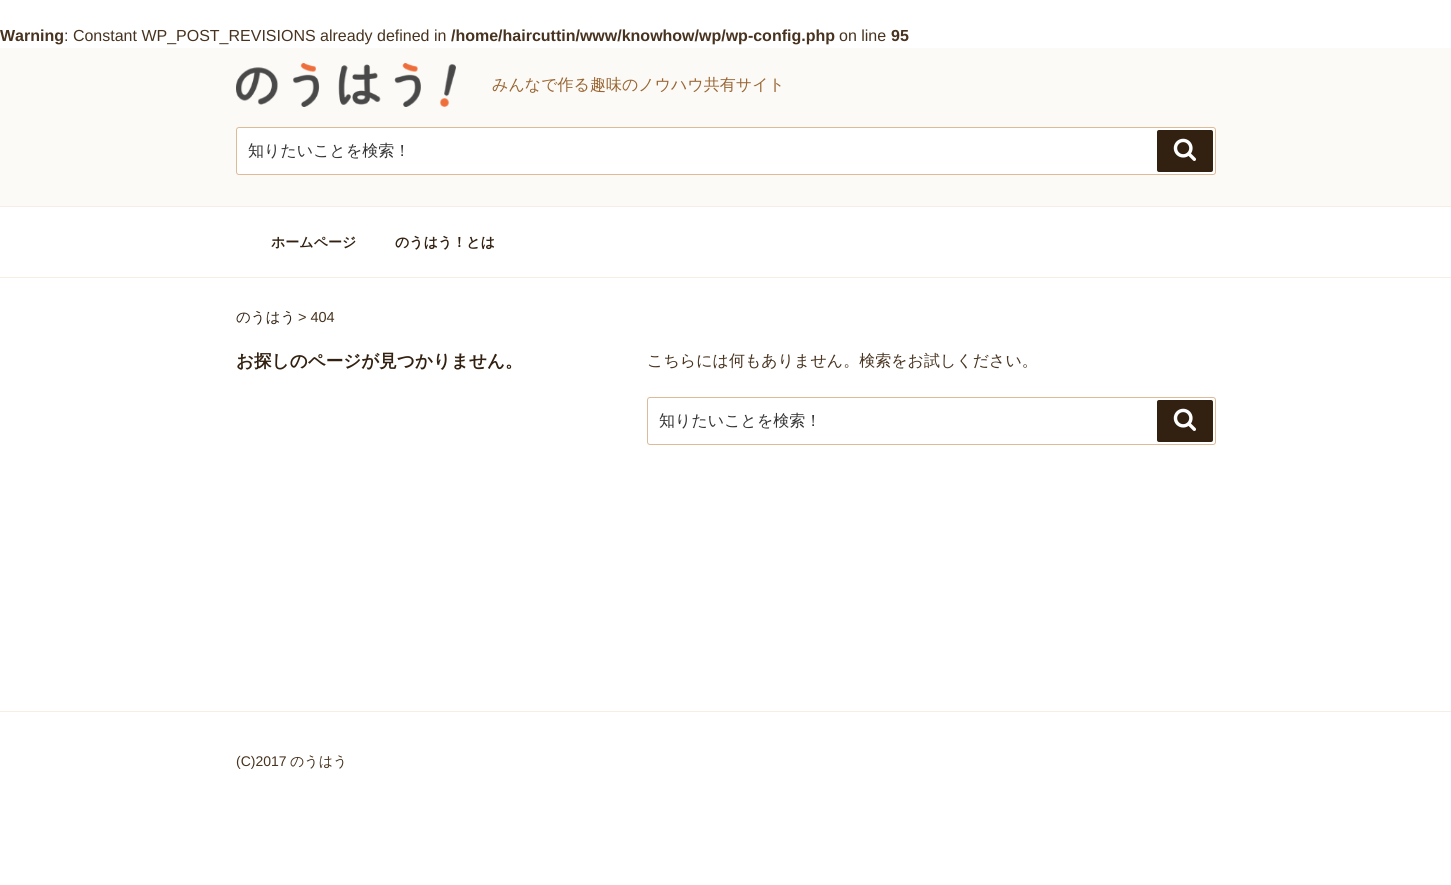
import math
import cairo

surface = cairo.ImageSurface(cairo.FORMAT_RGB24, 1451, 885)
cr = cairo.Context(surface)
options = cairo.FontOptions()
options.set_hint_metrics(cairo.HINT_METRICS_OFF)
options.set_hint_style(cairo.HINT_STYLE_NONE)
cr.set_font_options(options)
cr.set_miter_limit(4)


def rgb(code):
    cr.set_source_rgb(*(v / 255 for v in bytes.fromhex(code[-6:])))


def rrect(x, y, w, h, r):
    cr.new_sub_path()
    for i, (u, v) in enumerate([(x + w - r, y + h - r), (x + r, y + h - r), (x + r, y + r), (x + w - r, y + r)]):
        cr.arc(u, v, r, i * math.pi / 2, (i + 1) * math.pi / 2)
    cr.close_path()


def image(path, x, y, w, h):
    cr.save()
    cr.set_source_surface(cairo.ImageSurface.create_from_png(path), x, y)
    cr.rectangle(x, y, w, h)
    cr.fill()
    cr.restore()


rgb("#ffffff")
cr.paint()
rgb("#fcfaf7")
cr.rectangle(0, 48, 1451, 158)
cr.fill()
image("img/1.png", 236, 63, 220, 44)
rgb("#ffffff")
rrect(236.5, 127.5, 979, 47, 2.5)
cr.fill_preserve()
rgb("#ddba98")
cr.set_line_width(1)
cr.stroke()
rgb("#322111")
rrect(1157, 130, 56, 42, 2)
cr.fill()
image("img/2.png", 1173, 138, 23, 23)
rgb("#f6ede4")
cr.rectangle(0, 206, 1451, 1)
cr.fill()
cr.rectangle(0, 277, 1451, 1)
cr.fill()
rrect(647.5, 397.5, 568, 47, 2.5)
rgb("#ddba98")
cr.stroke()
rgb("#322111")
rrect(1157, 400, 56, 42, 2)
cr.fill()
image("img/2.png", 1173, 408, 23, 23)
rgb("#f6ede4")
cr.rectangle(0, 711, 1451, 1)
cr.fill()
cr.select_font_face("Liberation Sans", cairo.FONT_SLANT_NORMAL, cairo.FONT_WEIGHT_BOLD)
cr.set_font_size(16)
rgb("#47331f")
cr.move_to(0, 41)
cr.show_text("Warning")
cr.select_font_face("Liberation Sans")
cr.move_to(64, 41)
cr.show_text(": Constant WP_POST_REVISIONS already defined in")
cr.select_font_face("Liberation Sans", cairo.FONT_SLANT_NORMAL, cairo.FONT_WEIGHT_BOLD)
cr.move_to(451, 41)
cr.show_text("/home/haircuttin/www/knowhow/wp/wp-config.php")
cr.select_font_face("Liberation Sans")
cr.move_to(839, 41)
cr.show_text("on line")
cr.select_font_face("Liberation Sans", cairo.FONT_SLANT_NORMAL, cairo.FONT_WEIGHT_BOLD)
cr.move_to(891, 41)
cr.show_text("95")
cr.select_font_face("WenQuanYi Zen Hei Medium")
rgb("#996633")
cr.move_to(492, 90)
cr.show_text("みんなで作る趣味のノウハウ共有サイト")
rgb("#333333")
cr.move_to(248, 156)
cr.show_text("知りたいことを検索！")
cr.select_font_face("WenQuanYi Zen Hei", cairo.FONT_SLANT_NORMAL, cairo.FONT_WEIGHT_BOLD)
cr.set_font_size(14)
rgb("#322111")
cr.move_to(271, 247)
cr.show_text("ホームページ")
cr.move_to(395, 247)
cr.show_text("のうはう！とは")
cr.select_font_face("WenQuanYi Zen Hei Medium")
cr.set_font_size(14.5)
cr.move_to(236, 322)
cr.show_text("のうはう")
cr.select_font_face("Liberation Sans")
rgb("#47331f")
cr.move_to(298, 322)
cr.show_text("> 404")
cr.select_font_face("WenQuanYi Zen Hei", cairo.FONT_SLANT_NORMAL, cairo.FONT_WEIGHT_BOLD)
cr.set_font_size(17.6)
rgb("#322111")
cr.move_to(236, 367)
cr.show_text("お探しのページが見つかりません。")
cr.select_font_face("WenQuanYi Zen Hei Medium")
cr.set_font_size(16)
rgb("#47331f")
cr.move_to(647, 366)
cr.show_text("こちらには何もありません。検索をお試しください。")
rgb("#333333")
cr.move_to(659, 426)
cr.show_text("知りたいことを検索！")
cr.select_font_face("Liberation Sans")
cr.set_font_size(14)
rgb("#47331f")
cr.move_to(236, 766)
cr.show_text("(C)2017")
cr.select_font_face("WenQuanYi Zen Hei Medium")
cr.move_to(290, 766)
cr.show_text("のうはう")
surface.write_to_png("page.png")
